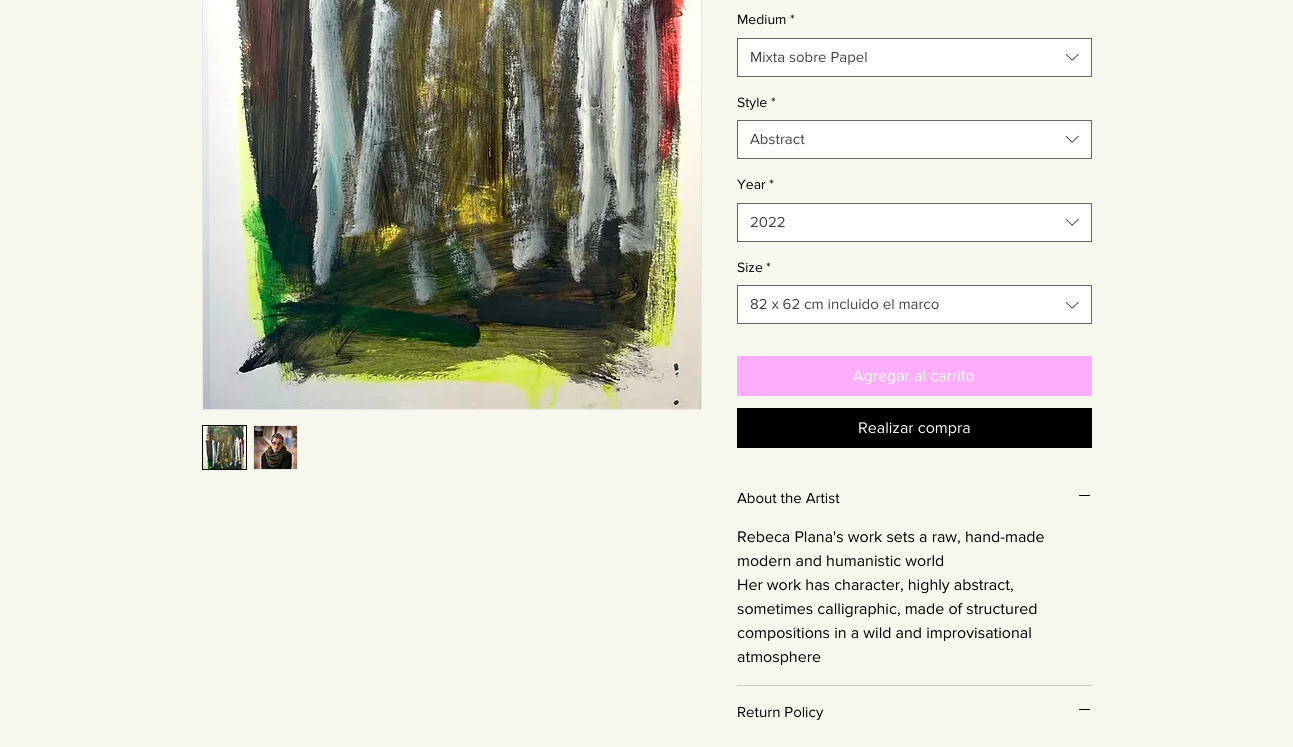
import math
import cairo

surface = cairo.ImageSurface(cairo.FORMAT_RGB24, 1293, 747)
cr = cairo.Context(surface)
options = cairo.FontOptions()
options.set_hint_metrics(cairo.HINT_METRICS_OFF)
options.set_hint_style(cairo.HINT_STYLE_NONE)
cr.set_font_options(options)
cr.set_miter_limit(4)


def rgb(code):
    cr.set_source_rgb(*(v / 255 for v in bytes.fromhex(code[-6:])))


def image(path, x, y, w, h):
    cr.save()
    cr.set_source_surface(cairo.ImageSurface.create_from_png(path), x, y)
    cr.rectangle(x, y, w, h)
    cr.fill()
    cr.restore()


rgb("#f7f7ed")
cr.paint()
cr.rectangle(202.5, -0.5, 499, 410)
rgb("#e8e6e6")
cr.set_line_width(1)
cr.stroke()
image("img/1.png", 203, 0, 498, 409)
cr.rectangle(202.5, 425.5, 44, 44)
rgb("#000000")
cr.stroke()
image("img/2.png", 203, 426, 43, 43)
rgb("#e8e6e6")
cr.rectangle(253, 425, 45, 45)
cr.fill()
image("img/3.png", 254, 426, 43, 43)
rgb("#ffffff")
cr.rectangle(737.5, 38.5, 354, 38)
cr.fill_preserve()
rgb("#666666")
cr.stroke()
image("img/4.png", 1065, 53, 14, 8)
rgb("#ffffff")
cr.rectangle(737.5, 120.5, 354, 38)
cr.fill_preserve()
rgb("#666666")
cr.stroke()
image("img/4.png", 1065, 135, 14, 8)
rgb("#ffffff")
cr.rectangle(737.5, 203.5, 354, 38)
cr.fill_preserve()
rgb("#666666")
cr.stroke()
image("img/4.png", 1065, 218, 14, 8)
rgb("#ffffff")
cr.rectangle(737.5, 285.5, 354, 38)
cr.fill_preserve()
rgb("#666666")
cr.stroke()
image("img/4.png", 1065, 301, 14, 8)
for x, y, w, h, color in [
    (737, 356, 355, 40, "#ffadff"),
    (737, 408, 355, 40, "#000000"),
    (737, 685, 355, 1, "#c7c7c7"),
    (1079, 495, 11, 1, "#000000"),
    (1079, 709, 11, 1, "#000000"),
]:
    rgb(color)
    cr.rectangle(x, y, w, h)
    cr.fill()
cr.select_font_face("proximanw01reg")
cr.set_font_size(14)
cr.move_to(737, 24)
cr.show_text("Medium")
cr.move_to(790, 24)
cr.show_text("*")
cr.set_font_size(15)
rgb("#444444")
cr.move_to(750, 62)
cr.show_text("Mixta sobre Papel")
cr.set_font_size(14)
rgb("#000000")
cr.move_to(737, 107)
cr.show_text("Style")
cr.move_to(771, 107)
cr.show_text("*")
cr.set_font_size(15)
rgb("#444444")
cr.move_to(750, 144)
cr.show_text("Abstract")
cr.set_font_size(14)
rgb("#000000")
cr.move_to(737, 189)
cr.show_text("Year")
cr.move_to(769, 189)
cr.show_text("*")
cr.set_font_size(15)
rgb("#444444")
cr.move_to(750, 227)
cr.show_text("2022")
cr.set_font_size(14)
rgb("#000000")
cr.move_to(737, 272)
cr.show_text("Size")
cr.move_to(766, 272)
cr.show_text("*")
cr.set_font_size(15)
rgb("#444444")
cr.move_to(750, 309)
cr.show_text("82 x 62 cm incluido el marco")
cr.set_font_size(16)
rgb("#ffffff")
cr.move_to(853, 381)
cr.show_text("Agregar al carrito")
cr.move_to(858, 433)
cr.show_text("Realizar compra")
cr.set_font_size(15)
rgb("#000000")
cr.move_to(737, 503)
cr.show_text("About the Artist")
cr.set_font_size(16)
for x, y, s in [
    (737, 542, "Rebeca Plana's work sets a raw, hand-made"),
    (737, 566, "modern and humanistic world"),
    (737, 590, "Her work has character, highly abstract,"),
    (737, 614, "sometimes calligraphic, made of structured"),
    (737, 638, "compositions in a wild and improvisational"),
    (737, 662, "atmosphere"),
]:
    cr.move_to(x, y)
    cr.show_text(s)
cr.set_font_size(15)
cr.move_to(737, 717)
cr.show_text("Return Policy")
surface.write_to_png("page.png")
